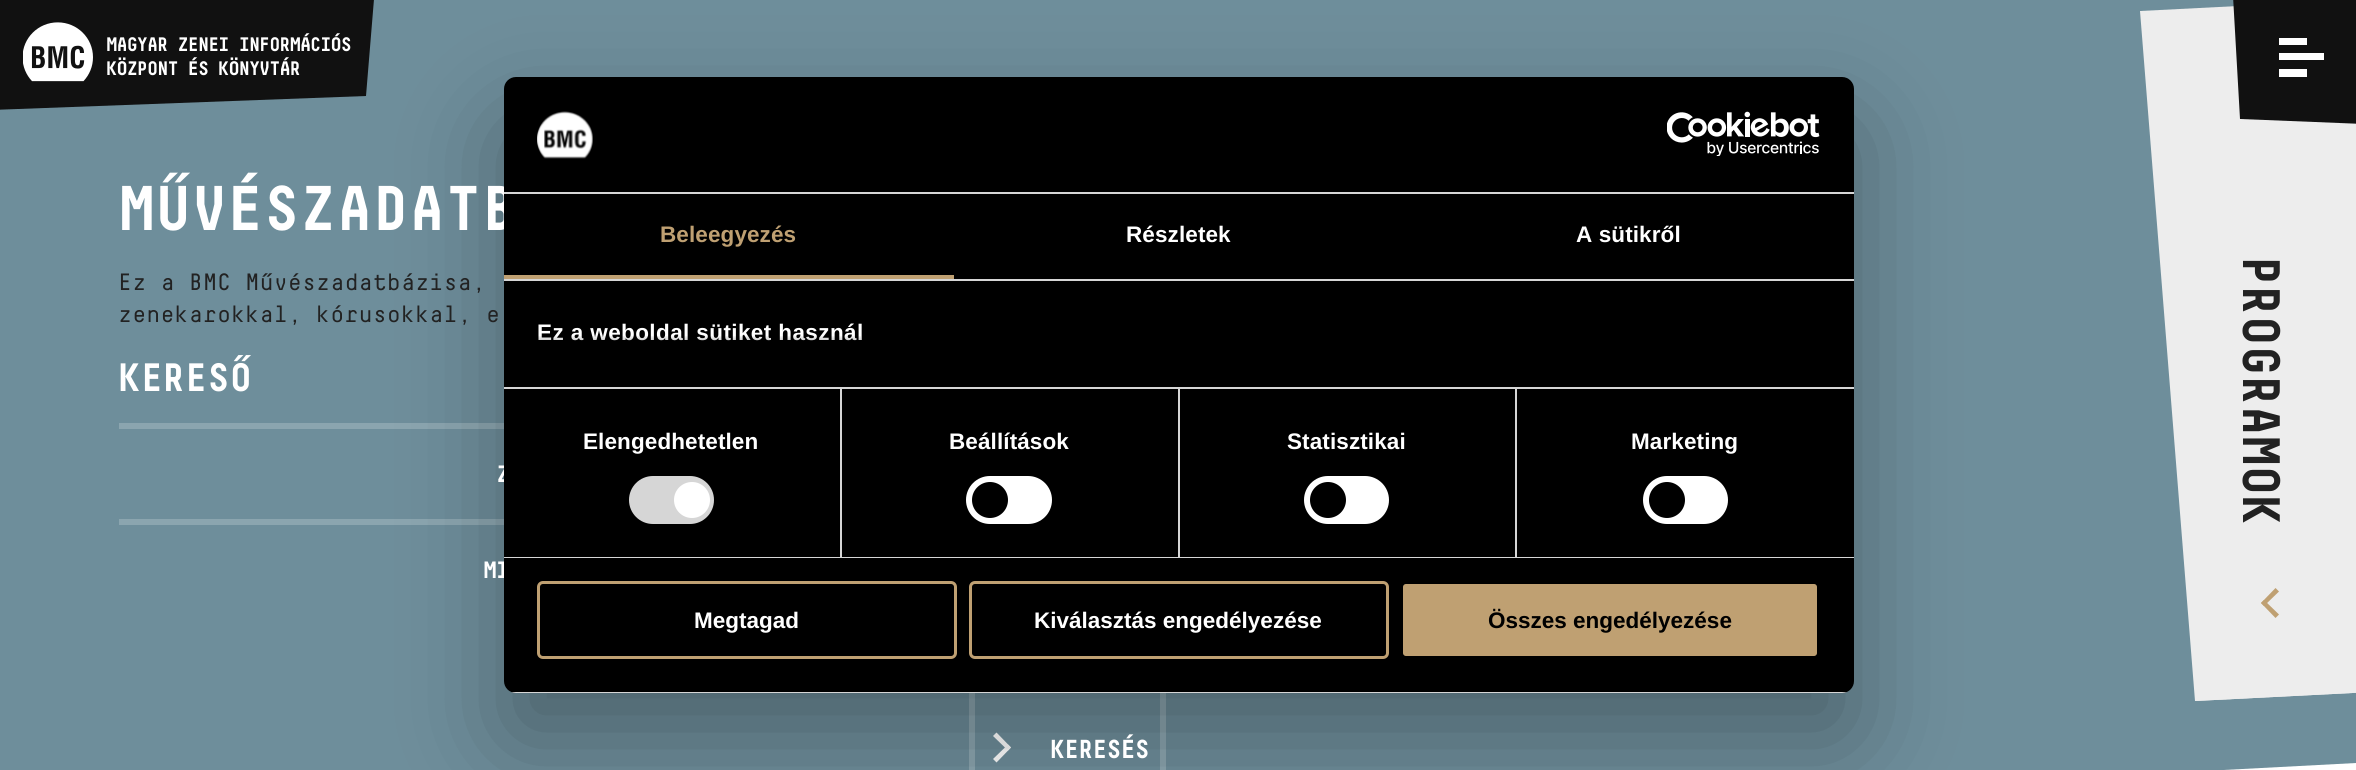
import math
import cairo

surface = cairo.ImageSurface(cairo.FORMAT_RGB24, 2356, 770)
cr = cairo.Context(surface)
options = cairo.FontOptions()
options.set_hint_metrics(cairo.HINT_METRICS_OFF)
options.set_hint_style(cairo.HINT_STYLE_NONE)
cr.set_font_options(options)
cr.set_miter_limit(4)


def rgb(code):
    cr.set_source_rgb(*(v / 255 for v in bytes.fromhex(code[-6:])))


def tracked(x, y, s, letter, word):
    cr.move_to(x, y)
    for ch in s:
        cr.show_text(ch)
        cr.rel_move_to(letter + word * (ch == ' '), 0)


def rrect(x, y, w, h, r):
    cr.new_sub_path()
    for i, (u, v) in enumerate([(x + w - r, y + h - r), (x + r, y + h - r), (x + r, y + r), (x + w - r, y + r)]):
        cr.arc(u, v, r, i * math.pi / 2, (i + 1) * math.pi / 2)
    cr.close_path()


def soft_shadow(x, y, w, h, r, blur, alpha):
    cr.push_group_with_content(cairo.CONTENT_ALPHA)
    cr.set_operator(cairo.OPERATOR_SOURCE)
    for i in range(15, -16, -2):
        e = blur * i / 6
        if min(w, h) + 2 * e > 0:
            cr.set_source_rgba(0, 0, 0, alpha * math.erfc((i - 1) / 8.5) / 2)
            rrect(x - e, y - e, w + 2 * e, h + 2 * e, max(0, min(r + e + blur * .6, min(w, h) / 2 + e)))
            cr.fill()
    cr.mask(cr.pop_group())


def image(path, x, y, w, h):
    cr.save()
    cr.set_source_surface(cairo.ImageSurface.create_from_png(path), x, y)
    cr.rectangle(x, y, w, h)
    cr.fill()
    cr.restore()


rgb("#ffffff")
cr.paint()
rgb("#6e8e9b")
cr.new_path()
cr.move_to(0, 0)
cr.line_to(2356, -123)
cr.line_to(2356, 763)
cr.line_to(0, 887)
cr.close_path()
cr.fill()
rgb("#111111")
cr.new_path()
cr.move_to(0, 0)
cr.line_to(375, -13)
cr.line_to(366, 96)
cr.line_to(-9, 110)
cr.close_path()
cr.fill()
image("img/1.png", 23, 22, 70, 60)
rgb("#ededed")
cr.new_path()
cr.move_to(2140, 11)
cr.line_to(2356, 0)
cr.line_to(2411, 690)
cr.line_to(2195, 701)
cr.close_path()
cr.fill()
rgb("#111111")
cr.new_path()
cr.move_to(2233, -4)
cr.line_to(2356, 0)
cr.line_to(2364, 124)
cr.line_to(2240, 119)
cr.close_path()
cr.fill()
for x, y, w, h, color in [
    (2279, 53, 45, 7, "#ffffff"),
    (2279, 38, 28, 7, "#ffffff"),
    (2279, 69, 28, 8, "#ffffff"),
]:
    rgb(color)
    cr.rectangle(x, y, w, h)
    cr.fill()
rgb("#ededed")
cr.new_path()
cr.move_to(2195, 700)
cr.line_to(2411, 688)
cr.line_to(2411, 690)
cr.line_to(2195, 701)
cr.close_path()
cr.fill()
rgb("#bfa072")
cr.new_path()
cr.move_to(2264, 600)
cr.line_to(2279, 614.5)
cr.line_to(2275.5, 618)
cr.line_to(2261, 603)
cr.close_path()
cr.fill()
cr.new_path()
cr.move_to(2275.5, 588)
cr.line_to(2279, 591.5)
cr.line_to(2264, 606)
cr.line_to(2261, 603)
cr.close_path()
cr.fill()
rgb("#8ba5af")
cr.rectangle(119, 423, 385, 6)
cr.fill()
cr.rectangle(119, 519, 385, 6)
cr.fill()
cr.rectangle(972, 690, 191, 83)
cr.set_line_width(6)
cr.stroke()
rgb("#ffffff")
cr.new_path()
cr.move_to(996.5, 732.5)
cr.line_to(1011, 747.5)
cr.line_to(1008, 750.5)
cr.line_to(993, 736)
cr.close_path()
cr.fill()
cr.new_path()
cr.move_to(1008, 744.5)
cr.line_to(1011, 747.5)
cr.line_to(996.5, 762.5)
cr.line_to(993, 759)
cr.close_path()
cr.fill()
rgb("#000000")
soft_shadow(504, 125, 1350, 616, 12, 51, 0.3)
cr.select_font_face("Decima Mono", cairo.FONT_SLANT_NORMAL, cairo.FONT_WEIGHT_BOLD)
cr.set_font_size(19.5)
rgb("#ffffff")
tracked(106, 51, "MAGYAR ZENEI INFORMÁCIÓS", -1.5, 0)
tracked(106, 75, "KÖZPONT ÉS KÖNYVTÁR", -1.5, 0)
cr.set_font_size(52.5)
rgb("#222222")
cr.save()
cr.translate(2243, 255)
cr.rotate(90 * math.pi / 180)
tracked(0, 0, "PROGRAMOK", -1.5, 0)
cr.restore()
cr.set_font_size(63)
rgb("#ffffff")
tracked(118, 230, "MŰVÉSZADATB", -1.5, 0)
cr.select_font_face("Decima Mono")
cr.set_font_size(23.6)
rgb("#222222")
cr.move_to(118, 290)
cr.show_text("Ez a BMC Művészadatbázisa,")
cr.move_to(118, 322)
cr.show_text("zenekarokkal, kórusokkal, e")
cr.select_font_face("Decima Mono", cairo.FONT_SLANT_NORMAL, cairo.FONT_WEIGHT_BOLD)
cr.set_font_size(39.5)
rgb("#ffffff")
tracked(118, 391, "KERESŐ", -1.5, 0)
cr.set_font_size(23.6)
tracked(496, 482, "Z", -1.5, 0)
tracked(483, 578, "MI", -1.5, 0)
cr.set_font_size(26)
tracked(1050, 758, "KERESÉS", -1.5, 0)
rgb("#000000")
rrect(504, 77, 1350, 616, 12)
cr.fill()
rgb("#d6d6d6")
cr.rectangle(504, 192, 1350, 2)
cr.fill()
image("img/2.png", 537, 111, 56, 48)
image("img/3.png", 1667, 111, 153, 45)
cr.rectangle(504, 279, 1350, 2)
cr.fill()
rgb("#bfa072")
cr.rectangle(504, 275, 450, 4)
cr.fill()
cr.select_font_face("Liberation Sans", cairo.FONT_SLANT_NORMAL, cairo.FONT_WEIGHT_BOLD)
cr.set_font_size(22.5)
tracked(660, 242, "Beleegyezés", 0.1, 0)
rgb("#ffffff")
tracked(1126, 242, "Részletek", 0.1, 0)
tracked(1576, 242, "A sütikről", 0.1, 0)
rgb("#d6d6d6")
cr.rectangle(504, 387, 1350, 2)
cr.fill()
rgb("#ffffff")
tracked(537, 340, "Ez a weboldal sütiket használ", 0.4, 0)
gradient = cairo.LinearGradient(1163, 380, 1163, 335)
gradient.add_color_stop_rgba(0, 0, 0, 0, 1)
gradient.add_color_stop_rgba(0.5, 0, 0, 0, 0.8)
gradient.add_color_stop_rgba(1, 0, 0, 0, 0)
cr.set_source(gradient)
cr.rectangle(538, 336, 323, 5)
cr.fill()
rgb("#d6d6d6")
cr.rectangle(504, 557, 1350, 1)
cr.fill()
cr.rectangle(840, 389, 2, 168)
cr.fill()
rgb("#ffffff")
tracked(583, 449, "Elengedhetetlen", 0.1, 0)
rgb("#d6d6d6")
rrect(629, 476, 85, 48, 24)
cr.fill()
rgb("#ffffff")
cr.arc(692, 500, 18, 0, 2 * math.pi)
cr.fill()
rgb("#d6d6d6")
cr.rectangle(1178, 389, 2, 168)
cr.fill()
rgb("#ffffff")
tracked(949, 449, "Beállítások", 0.1, 0)
rrect(966, 476, 86, 48, 24)
cr.fill()
rgb("#000000")
cr.arc(990, 500, 18, 0, 2 * math.pi)
cr.fill()
rgb("#d6d6d6")
cr.rectangle(1515, 389, 2, 168)
cr.fill()
rgb("#ffffff")
tracked(1287, 449, "Statisztikai", 0.1, 0)
rrect(1304, 476, 85, 48, 24)
cr.fill()
rgb("#000000")
cr.arc(1328, 500, 18, 0, 2 * math.pi)
cr.fill()
rgb("#ffffff")
tracked(1631, 449, "Marketing", 0.1, 0)
rrect(1643, 476, 85, 48, 24)
cr.fill()
rgb("#000000")
cr.arc(1667, 500, 18, 0, 2 * math.pi)
cr.fill()
cr.save()
rrect(504, 77, 1350, 616, 12)
cr.clip()
rgb("#d6d6d6")
cr.rectangle(504, 692, 1350, 1)
cr.fill()
cr.restore()
rrect(538.5, 582.5, 417, 75, 4.5)
rgb("#bfa072")
cr.set_line_width(3)
cr.stroke()
rgb("#ffffff")
cr.move_to(694, 628)
cr.show_text("Megtagad")
rrect(970.5, 582.5, 417, 75, 4.5)
rgb("#bfa072")
cr.stroke()
rgb("#ffffff")
cr.move_to(1034, 628)
cr.show_text("Kiválasztás engedélyezése")
rgb("#bfa072")
rrect(1401.5, 582.5, 417, 75, 4.5)
cr.fill_preserve()
rgb("#000000")
cr.stroke()
cr.move_to(1488, 628)
cr.show_text("Összes engedélyezése")
surface.write_to_png("page.png")
